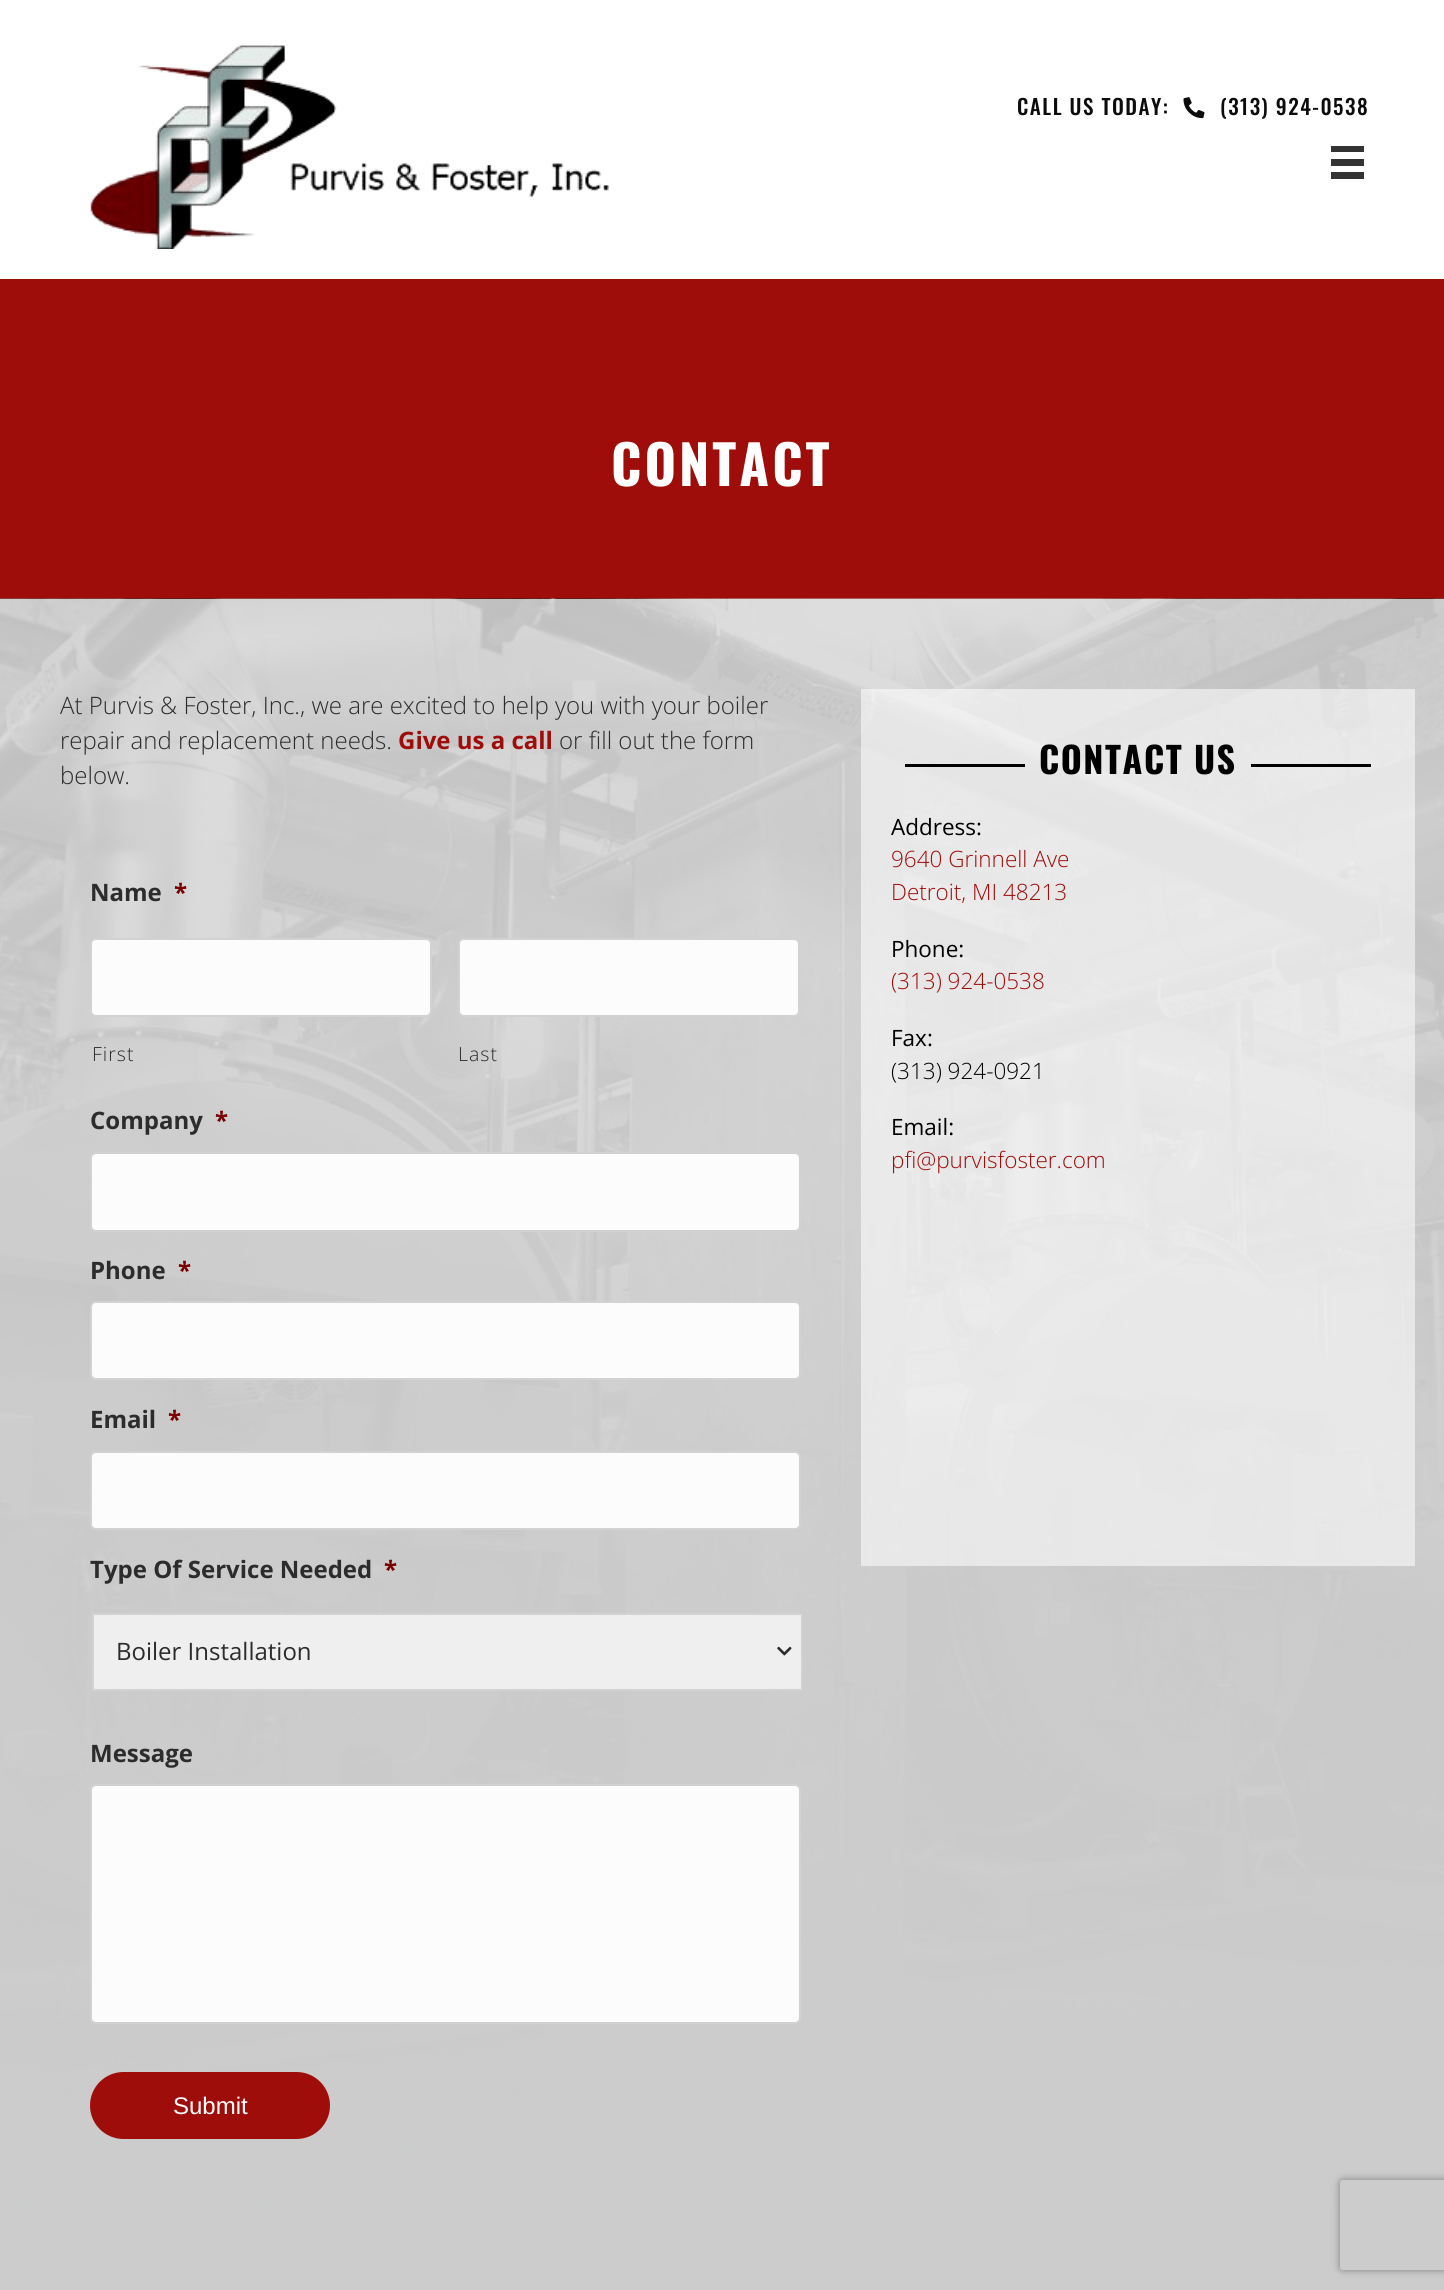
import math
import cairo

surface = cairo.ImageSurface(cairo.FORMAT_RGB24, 1444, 2290)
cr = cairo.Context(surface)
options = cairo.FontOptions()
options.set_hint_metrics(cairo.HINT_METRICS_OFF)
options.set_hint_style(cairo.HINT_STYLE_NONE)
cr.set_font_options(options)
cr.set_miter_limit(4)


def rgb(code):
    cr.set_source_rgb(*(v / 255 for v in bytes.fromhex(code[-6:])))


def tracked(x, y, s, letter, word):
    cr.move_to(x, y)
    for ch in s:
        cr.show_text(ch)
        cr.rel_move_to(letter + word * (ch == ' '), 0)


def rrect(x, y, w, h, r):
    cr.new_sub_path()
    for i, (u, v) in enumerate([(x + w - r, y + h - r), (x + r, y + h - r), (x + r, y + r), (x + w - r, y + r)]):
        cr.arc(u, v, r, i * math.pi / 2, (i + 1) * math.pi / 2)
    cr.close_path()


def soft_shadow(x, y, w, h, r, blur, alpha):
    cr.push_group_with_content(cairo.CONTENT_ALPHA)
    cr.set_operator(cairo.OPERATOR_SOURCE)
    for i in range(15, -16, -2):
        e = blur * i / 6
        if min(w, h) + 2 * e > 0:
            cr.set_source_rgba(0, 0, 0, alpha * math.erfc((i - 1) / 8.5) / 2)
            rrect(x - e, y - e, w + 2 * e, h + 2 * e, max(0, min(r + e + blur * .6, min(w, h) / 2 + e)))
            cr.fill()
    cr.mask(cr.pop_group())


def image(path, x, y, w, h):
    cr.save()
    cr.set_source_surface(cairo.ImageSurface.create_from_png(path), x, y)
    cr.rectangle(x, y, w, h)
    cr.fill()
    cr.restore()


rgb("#ffffff")
cr.paint()
image("img/1.png", 89, 45, 520, 204)
image("img/2.png", 1183, 97, 22, 22)
for x, y, w, h, color in [
    (1331, 146, 33, 6, "#333333"),
    (1331, 159, 33, 7, "#333333"),
    (1331, 172, 33, 7, "#333333"),
    (0, 279, 1444, 320, "#9e0d0a"),
]:
    rgb(color)
    cr.rectangle(x, y, w, h)
    cr.fill()
image("img/3.png", 0, 598, 1444, 1692)
rgb("#fcfcfc")
rrect(91, 939, 340, 77, 5)
cr.fill_preserve()
rgb("#d2d2d2")
cr.stroke()
rgb("#fcfcfc")
rrect(459, 939, 340, 77, 5)
cr.fill_preserve()
rgb("#d2d2d2")
cr.stroke()
rgb("#fcfcfc")
rrect(91, 1153, 709, 78, 5)
cr.fill_preserve()
rgb("#d2d2d2")
cr.stroke()
rgb("#fcfcfc")
rrect(91, 1302, 709, 77, 5)
cr.fill_preserve()
rgb("#d2d2d2")
cr.stroke()
rgb("#fcfcfc")
rrect(91, 1452, 709, 77, 5)
cr.fill_preserve()
rgb("#d2d2d2")
cr.stroke()
rgb("#efefef")
cr.rectangle(93, 1614, 709, 76)
cr.fill_preserve()
rgb("#d2d2d2")
cr.stroke()
image("img/4.png", 777, 1646, 15, 10)
rgb("#fcfcfc")
rrect(91, 1785, 709, 238, 5)
cr.fill_preserve()
rgb("#d2d2d2")
cr.stroke()
rgb("#9e0d0a")
rrect(90, 2072, 240, 67, 33.5)
cr.fill()
cr.set_source_rgba(1, 1, 1, 0.55)
cr.rectangle(861, 689, 554, 877)
cr.fill()
rgb("#000000")
cr.rectangle(905, 764, 120, 3)
cr.rectangle(1251, 764, 120, 3)
cr.fill()
cr.save()
cr.set_fill_rule(cairo.FILL_RULE_EVEN_ODD)
cr.new_path()
cr.move_to(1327, 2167)
cr.line_to(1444, 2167)
cr.line_to(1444, 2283)
cr.line_to(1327, 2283)
cr.close_path()
cr.move_to(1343, 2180)
cr.line_to(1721, 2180)
cr.curve_to(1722.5, 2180, 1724, 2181.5, 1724, 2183)
cr.line_to(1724, 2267)
cr.curve_to(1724, 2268.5, 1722.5, 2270, 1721, 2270)
cr.line_to(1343, 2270)
cr.curve_to(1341.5, 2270, 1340, 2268.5, 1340, 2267)
cr.line_to(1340, 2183)
cr.curve_to(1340, 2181.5, 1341.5, 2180, 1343, 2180)
cr.close_path()
cr.clip()
rgb("#808080")
soft_shadow(1340, 2180, 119, 90, 3, 4, 1)
cr.restore()
cr.select_font_face("Oswald Medium")
cr.set_font_size(21)
rgb("#0c0c0c")
tracked(1017, 115, "CALL US TODAY:", 1.5, 0)
tracked(1220, 115, "(313) 924-0538", 1.5, 0)
cr.select_font_face("Oswald", cairo.FONT_SLANT_NORMAL, cairo.FONT_WEIGHT_BOLD)
cr.set_font_size(54)
rgb("#ffffff")
tracked(611, 486, "CONTACT", 3, 0)
cr.select_font_face("Open Sans Light")
cr.set_font_size(24)
rgb("#2c2c2c")
cr.move_to(60, 714)
cr.show_text("At Purvis & Foster, Inc., we are excited to help you with your boiler")
cr.move_to(60, 749)
cr.show_text("repair and replacement needs.")
cr.select_font_face("Open Sans", cairo.FONT_SLANT_NORMAL, cairo.FONT_WEIGHT_BOLD)
rgb("#9e0d0a")
cr.move_to(398, 749)
cr.show_text("Give us a call")
cr.select_font_face("Open Sans Light")
rgb("#2c2c2c")
cr.move_to(559, 749)
cr.show_text("or fill out the form")
cr.move_to(60, 784)
cr.show_text("below.")
cr.select_font_face("Open Sans", cairo.FONT_SLANT_NORMAL, cairo.FONT_WEIGHT_BOLD)
cr.move_to(90, 901)
cr.show_text("Name")
rgb("#790000")
cr.move_to(174, 901)
cr.show_text("*")
cr.select_font_face("Open Sans Light")
cr.set_font_size(19.5)
rgb("#2c2c2c")
tracked(92, 1061, "First", 1, 0)
tracked(458, 1061, "Last", 1, 0)
cr.select_font_face("Open Sans", cairo.FONT_SLANT_NORMAL, cairo.FONT_WEIGHT_BOLD)
cr.set_font_size(24)
cr.move_to(90, 1129)
cr.show_text("Company")
rgb("#790000")
cr.move_to(215, 1129)
cr.show_text("*")
rgb("#2c2c2c")
cr.move_to(90, 1279)
cr.show_text("Phone")
rgb("#790000")
cr.move_to(178, 1279)
cr.show_text("*")
rgb("#2c2c2c")
cr.move_to(90, 1428)
cr.show_text("Email")
rgb("#790000")
cr.move_to(168, 1428)
cr.show_text("*")
rgb("#2c2c2c")
cr.move_to(90, 1578)
cr.show_text("Type Of Service Needed")
rgb("#790000")
cr.move_to(384, 1578)
cr.show_text("*")
cr.select_font_face("Open Sans")
rgb("#2c2c2c")
cr.move_to(116, 1660)
cr.show_text("Boiler Installation")
cr.select_font_face("Open Sans", cairo.FONT_SLANT_NORMAL, cairo.FONT_WEIGHT_BOLD)
cr.move_to(90, 1762)
cr.show_text("Message")
cr.select_font_face("Liberation Sans")
rgb("#ffffff")
cr.move_to(173, 2114)
cr.show_text("Submit")
cr.select_font_face("Oswald", cairo.FONT_SLANT_NORMAL, cairo.FONT_WEIGHT_BOLD)
cr.set_font_size(36)
rgb("#000000")
tracked(1039, 774, "CONTACT US", 1.5, 0)
cr.select_font_face("Open Sans")
cr.set_font_size(22.5)
cr.move_to(891, 835)
cr.show_text("Address:")
cr.select_font_face("Open Sans Light")
rgb("#9e0d0a")
cr.move_to(891, 867)
cr.show_text("9640 Grinnell Ave")
cr.move_to(891, 900)
cr.show_text("Detroit, MI 48213")
cr.select_font_face("Open Sans")
rgb("#000000")
cr.move_to(891, 957)
cr.show_text("Phone:")
cr.select_font_face("Open Sans Light")
rgb("#9e0d0a")
cr.move_to(891, 989)
cr.show_text("(313) 924-0538")
cr.select_font_face("Open Sans")
rgb("#000000")
cr.move_to(891, 1046)
cr.show_text("Fax:")
cr.select_font_face("Open Sans Light")
cr.move_to(891, 1079)
cr.show_text("(313) 924-0921")
cr.select_font_face("Open Sans")
cr.move_to(891, 1135)
cr.show_text("Email:")
cr.select_font_face("Open Sans Light")
rgb("#9e0d0a")
cr.move_to(891, 1168)
cr.show_text("pfi@purvisfoster.com")
surface.write_to_png("page.png")
